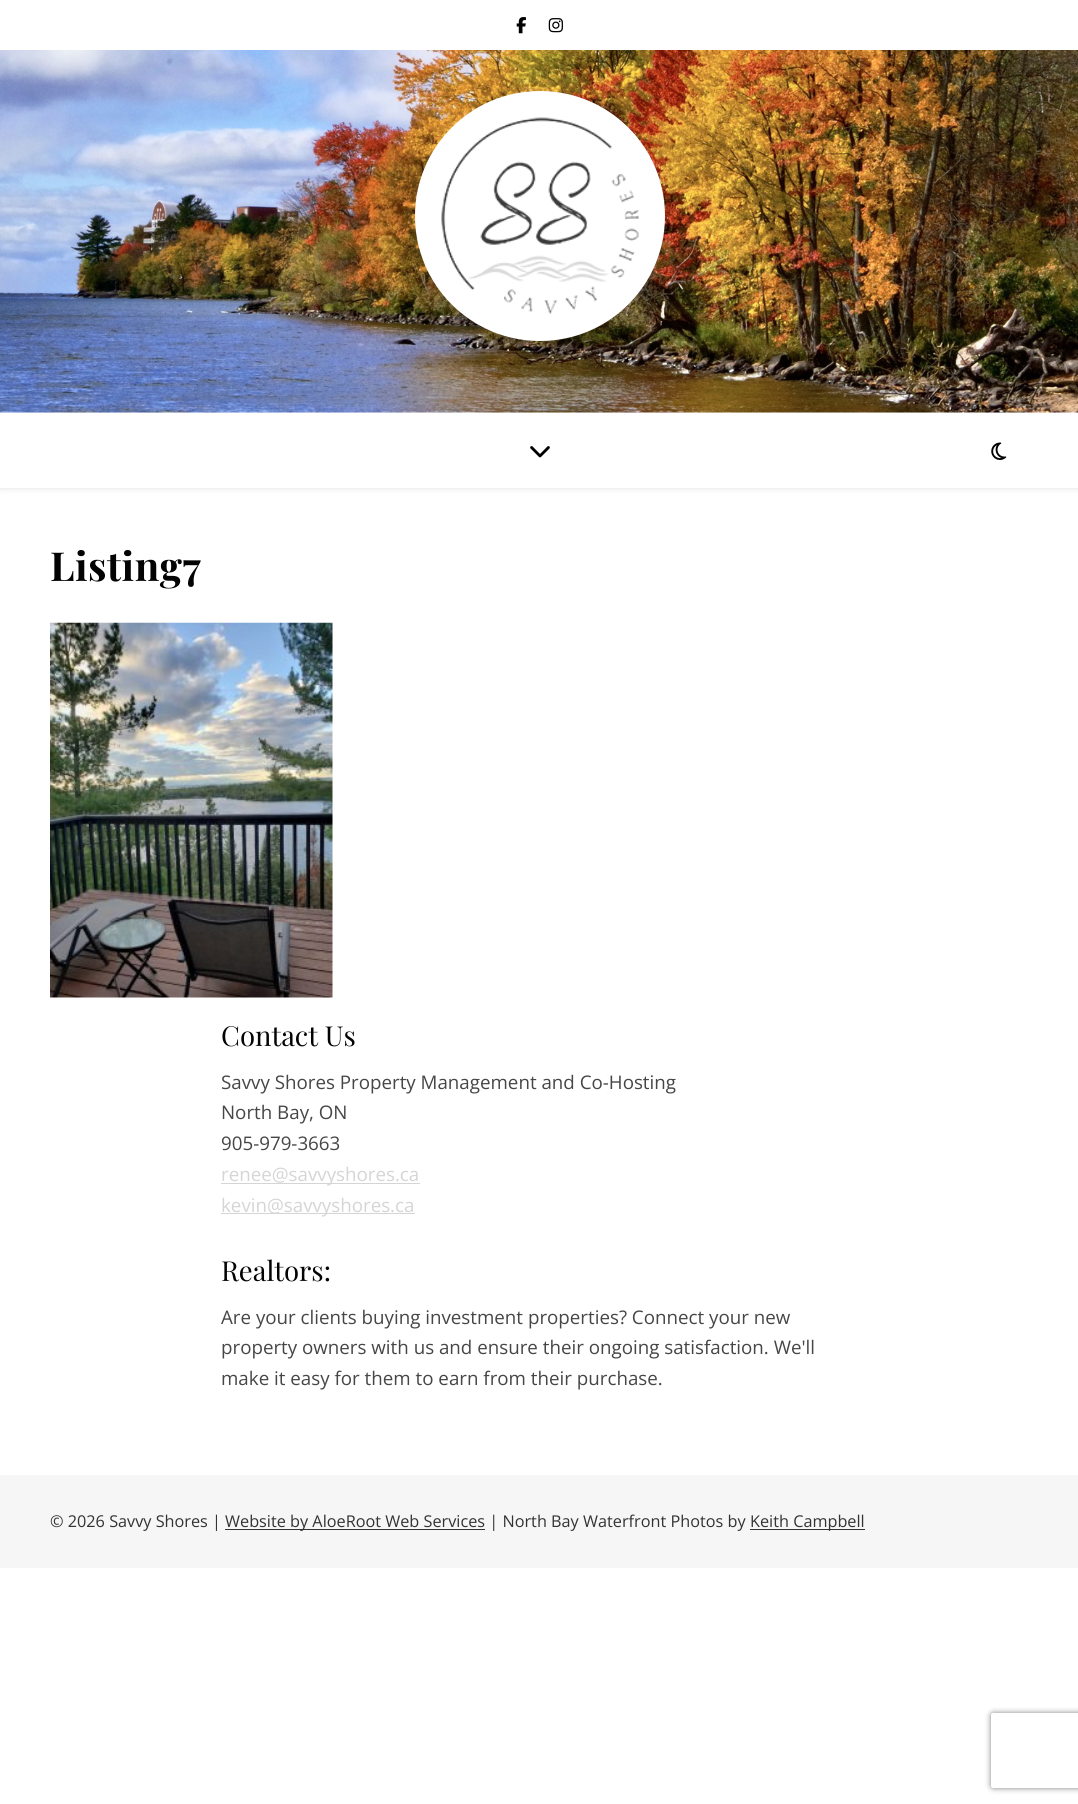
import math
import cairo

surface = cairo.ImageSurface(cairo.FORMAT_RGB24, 1078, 1804)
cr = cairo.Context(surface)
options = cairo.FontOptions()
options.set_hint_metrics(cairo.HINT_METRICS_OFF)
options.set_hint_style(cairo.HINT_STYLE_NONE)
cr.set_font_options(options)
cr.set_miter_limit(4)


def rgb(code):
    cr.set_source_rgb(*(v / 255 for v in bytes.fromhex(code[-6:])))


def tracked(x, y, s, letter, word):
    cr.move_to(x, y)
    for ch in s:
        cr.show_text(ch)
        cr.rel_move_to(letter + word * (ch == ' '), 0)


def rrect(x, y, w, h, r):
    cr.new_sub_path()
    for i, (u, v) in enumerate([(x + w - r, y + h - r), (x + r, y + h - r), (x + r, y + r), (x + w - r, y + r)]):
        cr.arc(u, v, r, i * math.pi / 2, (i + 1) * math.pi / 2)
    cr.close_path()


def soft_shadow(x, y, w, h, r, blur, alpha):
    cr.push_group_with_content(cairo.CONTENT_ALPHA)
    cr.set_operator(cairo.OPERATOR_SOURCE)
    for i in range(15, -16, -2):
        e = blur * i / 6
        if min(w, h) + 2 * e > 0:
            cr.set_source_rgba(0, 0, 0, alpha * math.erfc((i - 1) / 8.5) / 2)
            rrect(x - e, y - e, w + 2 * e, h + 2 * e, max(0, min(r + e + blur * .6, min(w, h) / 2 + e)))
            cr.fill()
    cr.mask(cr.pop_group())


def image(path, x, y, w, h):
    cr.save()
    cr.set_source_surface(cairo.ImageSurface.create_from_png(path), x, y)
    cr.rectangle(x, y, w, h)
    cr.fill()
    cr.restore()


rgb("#ffffff")
cr.paint()
image("img/1.png", 516, 17, 10, 17)
image("img/2.png", 548, 18, 15, 15)
image("img/3.png", 0, 50, 1078, 363)
rgb("#ffffff")
cr.arc(540, 216, 125, 0, 2 * math.pi)
cr.fill()
image("img/4.png", 441, 117, 198, 197)
rgb("#000000")
soft_shadow(0, 414, 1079, 75, 0, 3, 0.1)
rgb("#ffffff")
cr.rectangle(0, 413, 1078, 75)
cr.fill()
image("img/5.png", 530, 446, 20, 12)
image("img/6.png", 991, 442, 16, 18)
image("img/7.png", 50, 622, 283, 376)
for x, y, w, h, color in [
    (221, 1183, 199, 1, "#d6d5d5"),
    (221, 1213, 194, 1, "#d6d5d5"),
    (0, 1475, 1078, 93, "#f6f6f6"),
    (225, 1529, 260, 1, "#333333"),
    (750, 1529, 115, 1, "#333333"),
]:
    rgb(color)
    cr.rectangle(x, y, w, h)
    cr.fill()
cr.save()
cr.set_fill_rule(cairo.FILL_RULE_EVEN_ODD)
cr.new_path()
cr.move_to(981, 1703)
cr.line_to(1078, 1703)
cr.line_to(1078, 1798)
cr.line_to(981, 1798)
cr.close_path()
cr.move_to(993.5, 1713)
cr.line_to(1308.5, 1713)
cr.curve_to(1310, 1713, 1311, 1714, 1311, 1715.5)
cr.line_to(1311, 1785.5)
cr.curve_to(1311, 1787, 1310, 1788, 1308.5, 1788)
cr.line_to(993.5, 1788)
cr.curve_to(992, 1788, 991, 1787, 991, 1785.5)
cr.line_to(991, 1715.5)
cr.curve_to(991, 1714, 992, 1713, 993.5, 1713)
cr.close_path()
cr.clip()
rgb("#808080")
soft_shadow(991, 1713, 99, 75, 2.5, 3, 1)
cr.restore()
cr.select_font_face("Playfair Display", cairo.FONT_SLANT_NORMAL, cairo.FONT_WEIGHT_BOLD)
cr.set_font_size(40)
rgb("#030303")
tracked(50, 581, "Listing7", 0.5, 0)
cr.select_font_face("Playfair Display")
cr.set_font_size(27.5)
cr.move_to(221, 1046)
cr.show_text("Contact Us")
cr.select_font_face("Open Sans")
cr.set_font_size(18.75)
rgb("#464646")
for x, y, s in [
    (221, 1089, "Savvy Shores Property Management and Co-Hosting"),
    (221, 1119, "North Bay, ON"),
    (221, 1150, "905-979-3663"),
]:
    cr.move_to(x, y)
    cr.show_text(s)
rgb("#d6d5d5")
cr.move_to(221, 1181)
cr.show_text("renee@savvyshores.ca")
cr.move_to(221, 1212)
cr.show_text("kevin@savvyshores.ca")
cr.select_font_face("Playfair Display")
cr.set_font_size(27.5)
rgb("#030303")
cr.move_to(221, 1281)
cr.show_text("Realtors:")
cr.select_font_face("Open Sans")
cr.set_font_size(18.75)
rgb("#464646")
for x, y, s in [
    (221, 1324, "Are your clients buying investment properties? Connect your new"),
    (221, 1354, "property owners with us and ensure their ongoing satisfaction. We'll"),
    (221, 1385, "make it easy for them to earn from their purchase."),
]:
    cr.move_to(x, y)
    cr.show_text(s)
cr.set_font_size(16.25)
rgb("#333333")
for x, y, s in [
    (50, 1527, "© 2026 Savvy Shores |"),
    (225, 1527, "Website by AloeRoot Web Services | North Bay Waterfront Photos by"),
    (750, 1527, "Keith Campbell"),
]:
    cr.move_to(x, y)
    cr.show_text(s)
surface.write_to_png("page.png")
